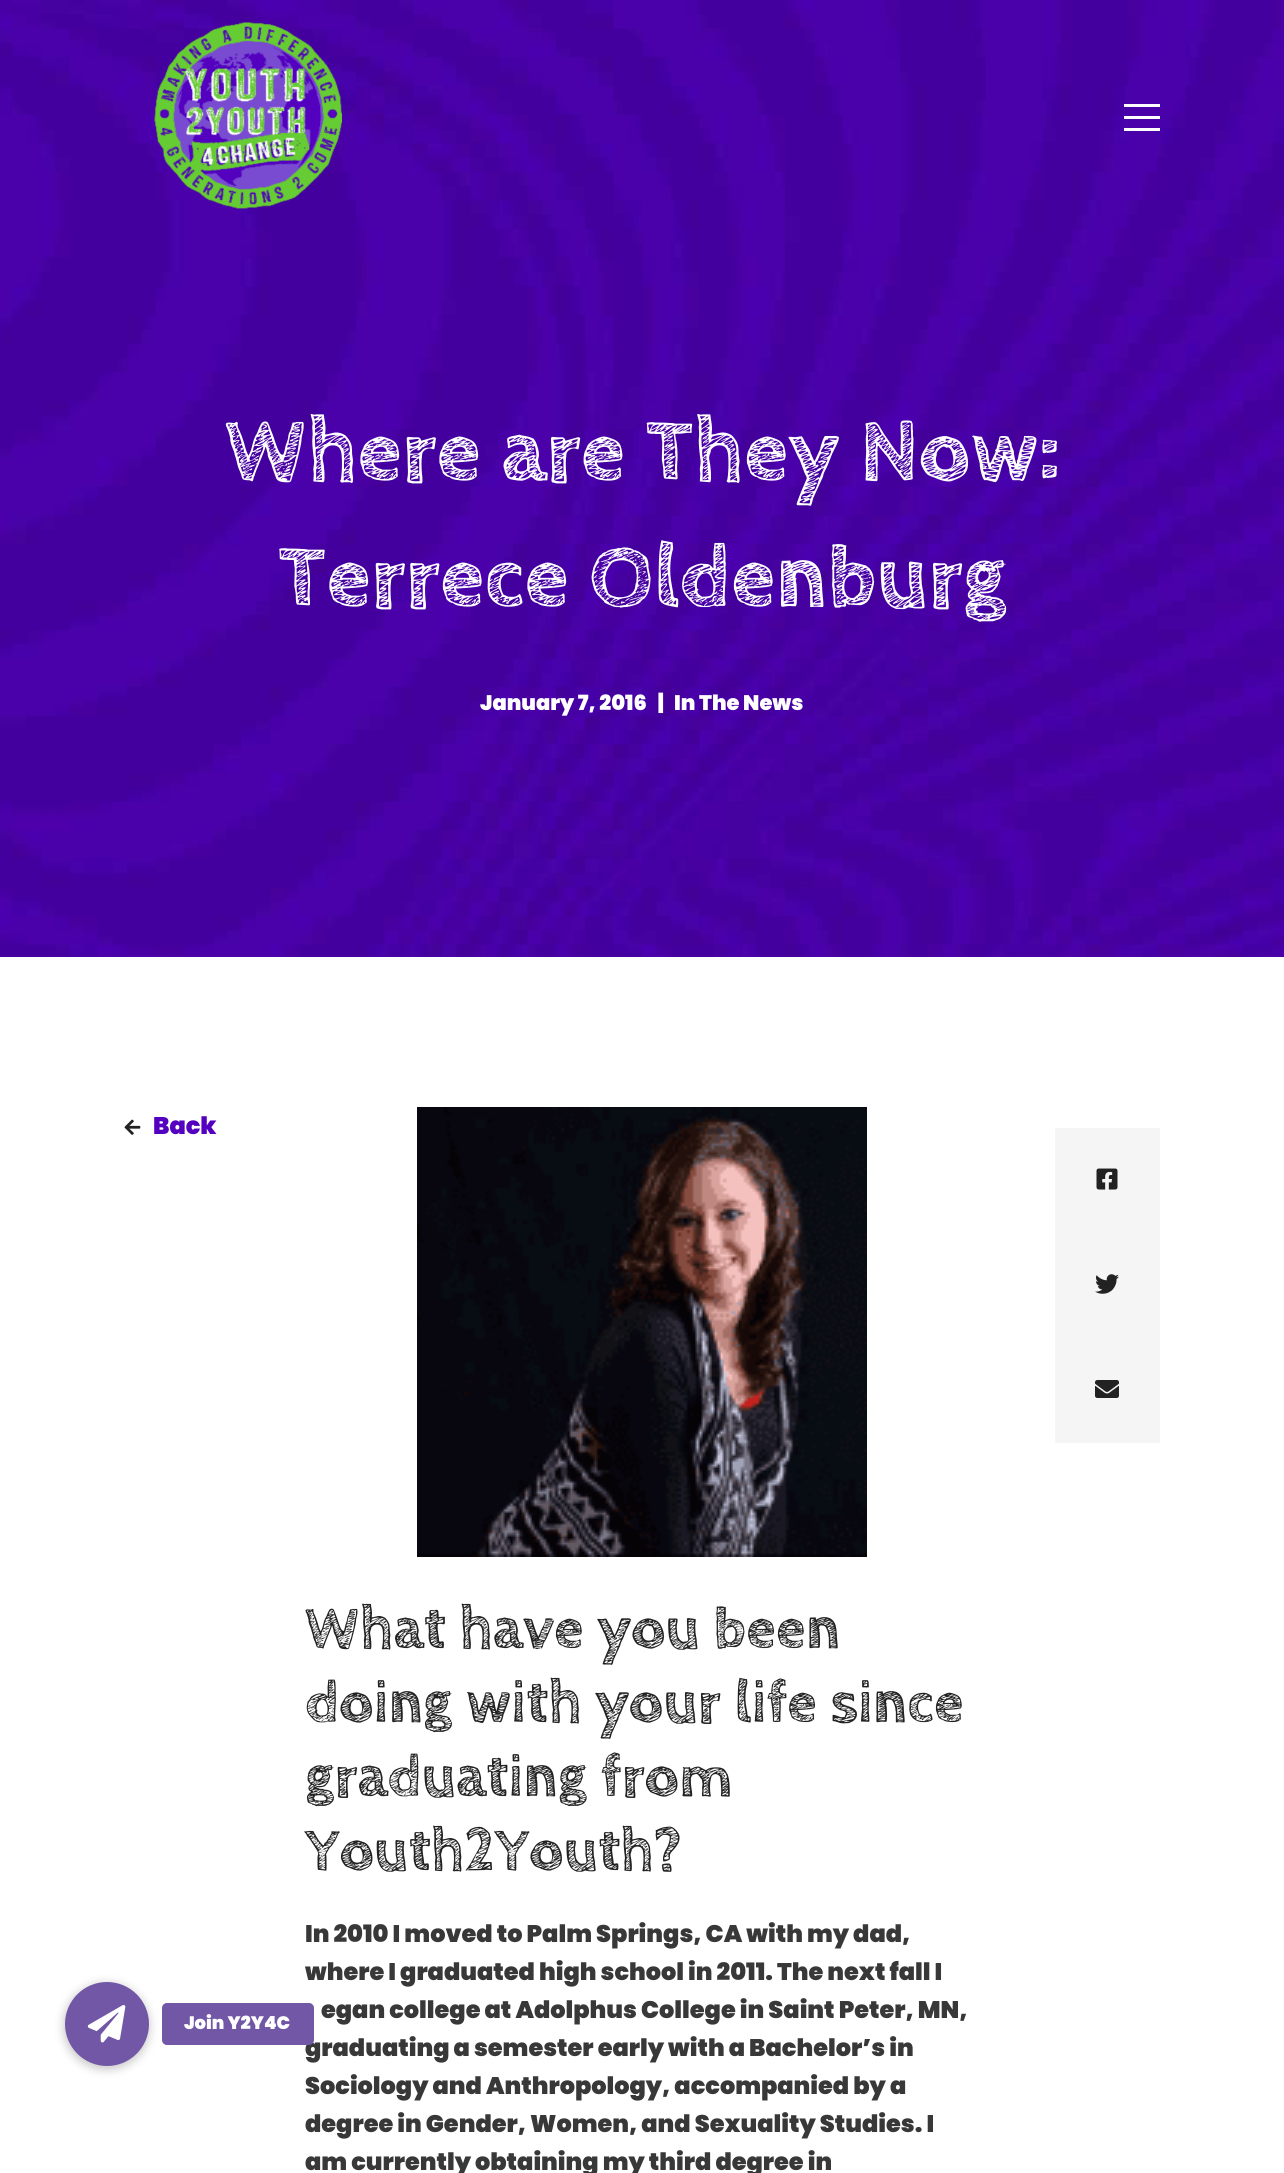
import math
import cairo

surface = cairo.ImageSurface(cairo.FORMAT_RGB24, 1284, 2173)
cr = cairo.Context(surface)
options = cairo.FontOptions()
options.set_hint_metrics(cairo.HINT_METRICS_OFF)
options.set_hint_style(cairo.HINT_STYLE_NONE)
cr.set_font_options(options)
cr.set_miter_limit(4)


def rgb(code):
    cr.set_source_rgb(*(v / 255 for v in bytes.fromhex(code[-6:])))


def rrect(x, y, w, h, r):
    cr.new_sub_path()
    for i, (u, v) in enumerate([(x + w - r, y + h - r), (x + r, y + h - r), (x + r, y + r), (x + w - r, y + r)]):
        cr.arc(u, v, r, i * math.pi / 2, (i + 1) * math.pi / 2)
    cr.close_path()


def soft_shadow(x, y, w, h, r, blur, alpha):
    cr.push_group_with_content(cairo.CONTENT_ALPHA)
    cr.set_operator(cairo.OPERATOR_SOURCE)
    for i in range(15, -16, -2):
        e = blur * i / 6
        if min(w, h) + 2 * e > 0:
            cr.set_source_rgba(0, 0, 0, alpha * math.erfc((i - 1) / 8.5) / 2)
            rrect(x - e, y - e, w + 2 * e, h + 2 * e, max(0, min(r + e + blur * .6, min(w, h) / 2 + e)))
            cr.fill()
    cr.mask(cr.pop_group())


def image(path, x, y, w, h):
    cr.save()
    cr.set_source_surface(cairo.ImageSurface.create_from_png(path), x, y)
    cr.rectangle(x, y, w, h)
    cr.fill()
    cr.restore()


rgb("#ffffff")
cr.paint()
image("img/2.png", 0, 0, 1284, 957)
image("img/1.png", 154, 22, 188, 187)
for x, y, w, h, color in [
    (1124, 116, 36, 3, "#ffffff"),
    (1124, 104, 36, 3, "#ffffff"),
    (1124, 128, 36, 3, "#ffffff"),
]:
    rgb(color)
    cr.rectangle(x, y, w, h)
    cr.fill()
image("img/3.png", 124, 1119, 17, 16)
rgb("#f5f5f5")
cr.rectangle(1055, 1128, 105, 315)
cr.fill()
image("img/4.png", 1096, 1168, 22, 22)
image("img/5.png", 1095, 1274, 24, 20)
image("img/6.png", 1095, 1380, 24, 18)
image("img/7.png", 417, 1107, 450, 450)
rgb("#000000")
soft_shadow(63, 1983, 87, 87, 43.5, 4.5, 0.2)
rgb("#7157a6")
cr.arc(107, 2024, 42, 0, 2 * math.pi)
cr.fill()
image("img/8.png", 87, 2005, 39, 38)
cr.select_font_face("Cabin Sketch", cairo.FONT_SLANT_NORMAL, cairo.FONT_WEIGHT_BOLD)
cr.set_font_size(90)
rgb("#ffffff")
cr.move_to(225, 479)
cr.show_text("Where are They Now:")
cr.move_to(278, 605)
cr.show_text("Terrece Oldenburg")
cr.select_font_face("Poppins Black")
cr.set_font_size(21)
for x, y, s in [
    (480, 710, "January 7, 2016"),
    (658, 710, "|"),
    (674, 710, "In The News"),
]:
    cr.move_to(x, y)
    cr.show_text(s)
cr.set_font_size(24)
rgb("#5300bf")
cr.move_to(153, 1134)
cr.show_text("Back")
cr.select_font_face("Cabin Sketch", cairo.FONT_SLANT_NORMAL, cairo.FONT_WEIGHT_BOLD)
cr.set_font_size(60)
rgb("#222222")
for x, y, s in [
    (305, 1647, "What have you been"),
    (305, 1721, "doing with your life since"),
    (305, 1795, "graduating from"),
    (305, 1869, "Youth2Youth?"),
]:
    cr.move_to(x, y)
    cr.show_text(s)
cr.select_font_face("Poppins Black")
cr.set_font_size(24)
rgb("#383838")
for x, y, s in [
    (305, 1942, "In 2010 I moved to Palm Springs, CA with my dad,"),
    (305, 1980, "where I graduated high school in 2011. The next fall I"),
    (321, 2018, "egan college at Adolphus College in Saint Peter, MN,"),
    (305, 2056, "graduating a semester early with a Bachelor’s in"),
    (305, 2094, "Sociology and Anthropology, accompanied by a"),
    (305, 2132, "degree in Gender, Women, and Sexuality Studies. I"),
    (305, 2170, "am currently obtaining my third degree in"),
]:
    cr.move_to(x, y)
    cr.show_text(s)
rgb("#7157a6")
rrect(162, 2003, 152, 42, 5)
cr.fill()
cr.set_font_size(18)
rgb("#ffffff")
cr.move_to(184, 2029)
cr.show_text("Join Y2Y4C")
surface.write_to_png("page.png")
